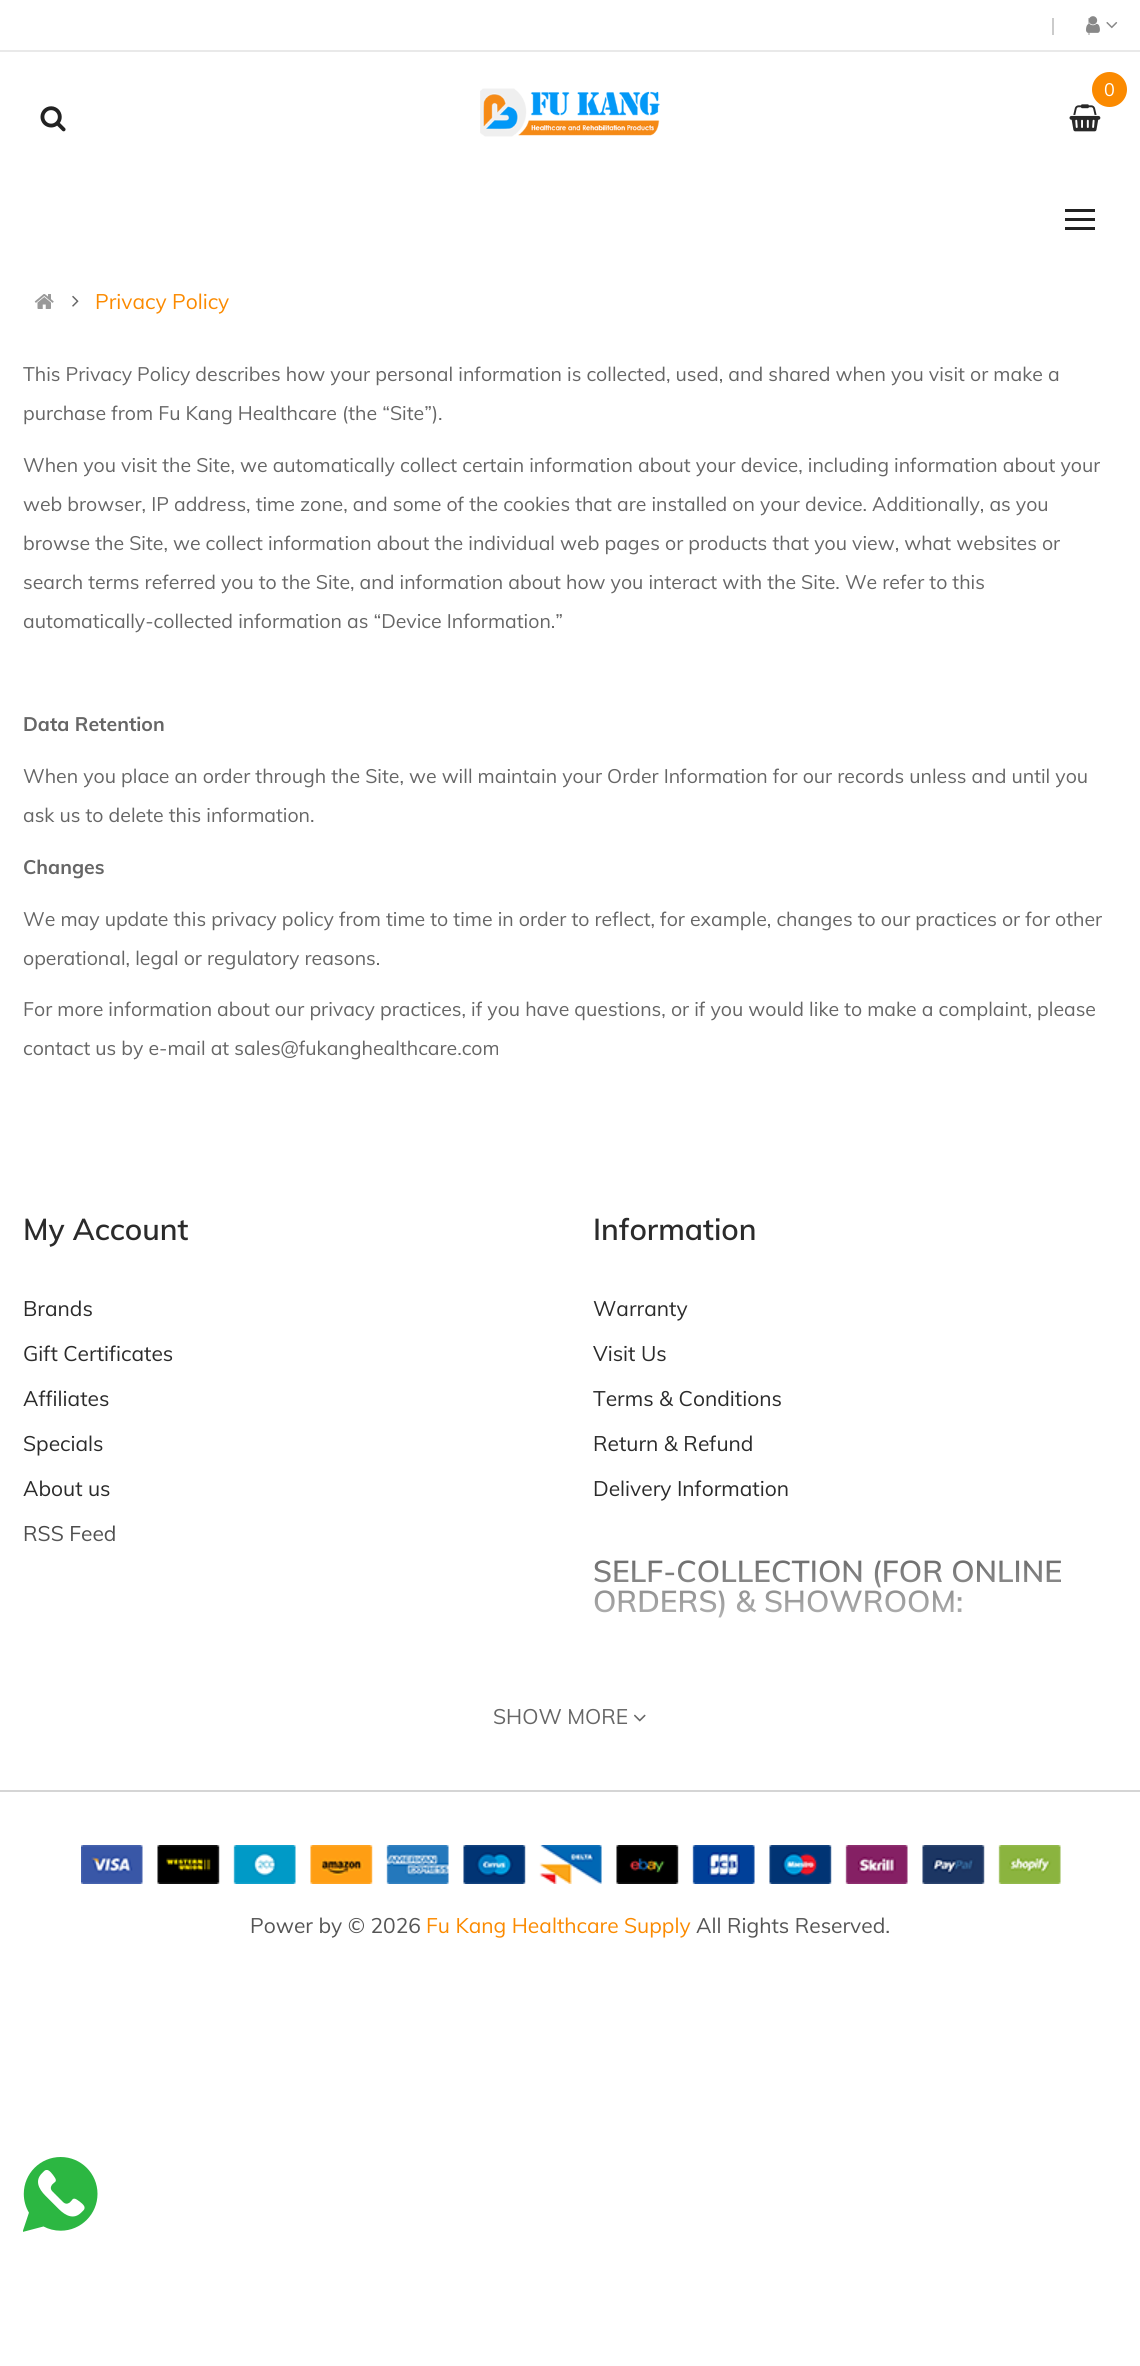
import math
import cairo

surface = cairo.ImageSurface(cairo.FORMAT_RGB24, 1140, 2366)
cr = cairo.Context(surface)
options = cairo.FontOptions()
options.set_hint_metrics(cairo.HINT_METRICS_OFF)
options.set_hint_style(cairo.HINT_STYLE_NONE)
cr.set_font_options(options)
cr.set_miter_limit(4)


def rgb(code):
    cr.set_source_rgb(*(v / 255 for v in bytes.fromhex(code[-6:])))


def image(path, x, y, w, h):
    cr.save()
    cr.set_source_surface(cairo.ImageSurface.create_from_png(path), x, y)
    cr.rectangle(x, y, w, h)
    cr.fill()
    cr.restore()


rgb("#ffffff")
cr.paint()
for x, y, w, h, color in [
    (0, 50, 1140, 2, "#e9e9e9"),
    (1052, 18, 2, 17, "#cbcbcb"),
    (1088, 18, 2, 17, "#cbcbcb"),
]:
    rgb(color)
    cr.rectangle(x, y, w, h)
    cr.fill()
image("img/1.png", 1086, 16, 14, 17)
image("img/2.png", 1106, 22, 12, 7)
image("img/3.png", 40, 106, 26, 26)
image("img/4.png", 480, 88, 180, 49)
image("img/5.png", 1069, 104, 32, 28)
rgb("#fb8a00")
cr.arc(1109.5, 89.5, 17.5, 0, 2 * math.pi)
cr.fill()
for x, y, w, h, color in [
    (1065, 209, 30, 3, "#222222"),
    (1065, 218, 30, 3, "#222222"),
    (1065, 227, 30, 3, "#222222"),
]:
    rgb(color)
    cr.rectangle(x, y, w, h)
    cr.fill()
image("img/6.png", 34, 294, 20, 15)
image("img/7.png", 72, 295, 7, 12)
image("img/8.png", 634, 1714, 12, 8)
rgb("#d5d5d5")
cr.rectangle(0, 1790, 1140, 2)
cr.fill()
image("img/9.png", 81, 1845, 980, 39)
image("img/10.png", 23, 2157, 75, 75)
cr.select_font_face("Muli")
cr.set_font_size(18)
rgb("#ffffff")
cr.move_to(1104, 96)
cr.show_text("0")
cr.set_font_size(21)
rgb("#fb8a00")
cr.move_to(95, 309)
cr.show_text("Privacy Policy")
cr.set_font_size(19.5)
rgb("#666666")
for x, y, s in [
    (23, 381, "This Privacy Policy describes how your personal information is collected, used, and shared when you visit or make a"),
    (23, 420, "purchase from Fu Kang Healthcare (the “Site”)."),
    (23, 472, "When you visit the Site, we automatically collect certain information about your device, including information about your"),
    (23, 511, "web browser, IP address, time zone, and some of the cookies that are installed on your device. Additionally, as you"),
    (23, 550, "browse the Site, we collect information about the individual web pages or products that you view, what websites or"),
    (23, 589, "search terms referred you to the Site, and information about how you interact with the Site. We refer to this"),
    (23, 628, "automatically-collected information as “Device Information.”"),
]:
    cr.move_to(x, y)
    cr.show_text(s)
cr.select_font_face("Muli", cairo.FONT_SLANT_NORMAL, cairo.FONT_WEIGHT_BOLD)
cr.move_to(23, 731)
cr.show_text("Data Retention")
cr.select_font_face("Muli")
cr.move_to(23, 783)
cr.show_text("When you place an order through the Site, we will maintain your Order Information for our records unless and until you")
cr.move_to(23, 822)
cr.show_text("ask us to delete this information.")
cr.select_font_face("Muli", cairo.FONT_SLANT_NORMAL, cairo.FONT_WEIGHT_BOLD)
cr.move_to(23, 874)
cr.show_text("Changes")
cr.select_font_face("Muli")
for x, y, s in [
    (23, 926, "We may update this privacy policy from time to time in order to reflect, for example, changes to our practices or for other"),
    (23, 965, "operational, legal or regulatory reasons."),
    (23, 1016, "For more information about our privacy practices, if you have questions, or if you would like to make a complaint, please"),
    (23, 1055, "contact us by e-mail at sales@fukanghealthcare.com"),
]:
    cr.move_to(x, y)
    cr.show_text(s)
cr.select_font_face("Muli SemiBold")
cr.set_font_size(30)
rgb("#2b2b2b")
cr.move_to(23, 1240)
cr.show_text("My Account")
cr.select_font_face("Muli")
cr.set_font_size(21)
for x, y, s in [
    (23, 1316, "Brands"),
    (23, 1361, "Gift Certificates"),
    (23, 1406, "Affiliates"),
    (23, 1451, "Specials"),
    (23, 1496, "About us"),
    (23, 1541, "RSS Feed"),
]:
    cr.move_to(x, y)
    cr.show_text(s)
cr.select_font_face("Muli SemiBold")
cr.set_font_size(30)
cr.move_to(593, 1240)
cr.show_text("Information")
cr.select_font_face("Muli")
cr.set_font_size(21)
for x, y, s in [
    (593, 1316, "Warranty"),
    (593, 1361, "Visit Us"),
    (593, 1406, "Terms & Conditions"),
    (593, 1451, "Return & Refund"),
    (593, 1496, "Delivery Information"),
]:
    cr.move_to(x, y)
    cr.show_text(s)
cr.select_font_face("Muli SemiBold")
cr.set_font_size(30)
cr.move_to(593, 1582)
cr.show_text("SELF-COLLECTION (FOR ONLINE")
cr.move_to(593, 1612)
cr.show_text("ORDERS) & SHOWROOM:")
gradient = cairo.LinearGradient(570, 1503, 570, 1683)
gradient.add_color_stop_rgba(0, 1, 1, 1, 0)
gradient.add_color_stop_rgba(1, 1, 1, 1, 1)
cr.set_source(gradient)
cr.rectangle(24, 1525, 1036, 93)
cr.fill()
cr.select_font_face("Muli")
cr.set_font_size(21)
rgb("#666666")
cr.move_to(493, 1724)
cr.show_text("SHOW MORE")
rgb("#555555")
cr.move_to(250, 1933)
cr.show_text("Power by © 2026")
rgb("#fb8a00")
cr.move_to(426, 1933)
cr.show_text("Fu Kang Healthcare Supply")
rgb("#555555")
cr.move_to(696, 1933)
cr.show_text("All Rights Reserved.")
surface.write_to_png("page.png")
